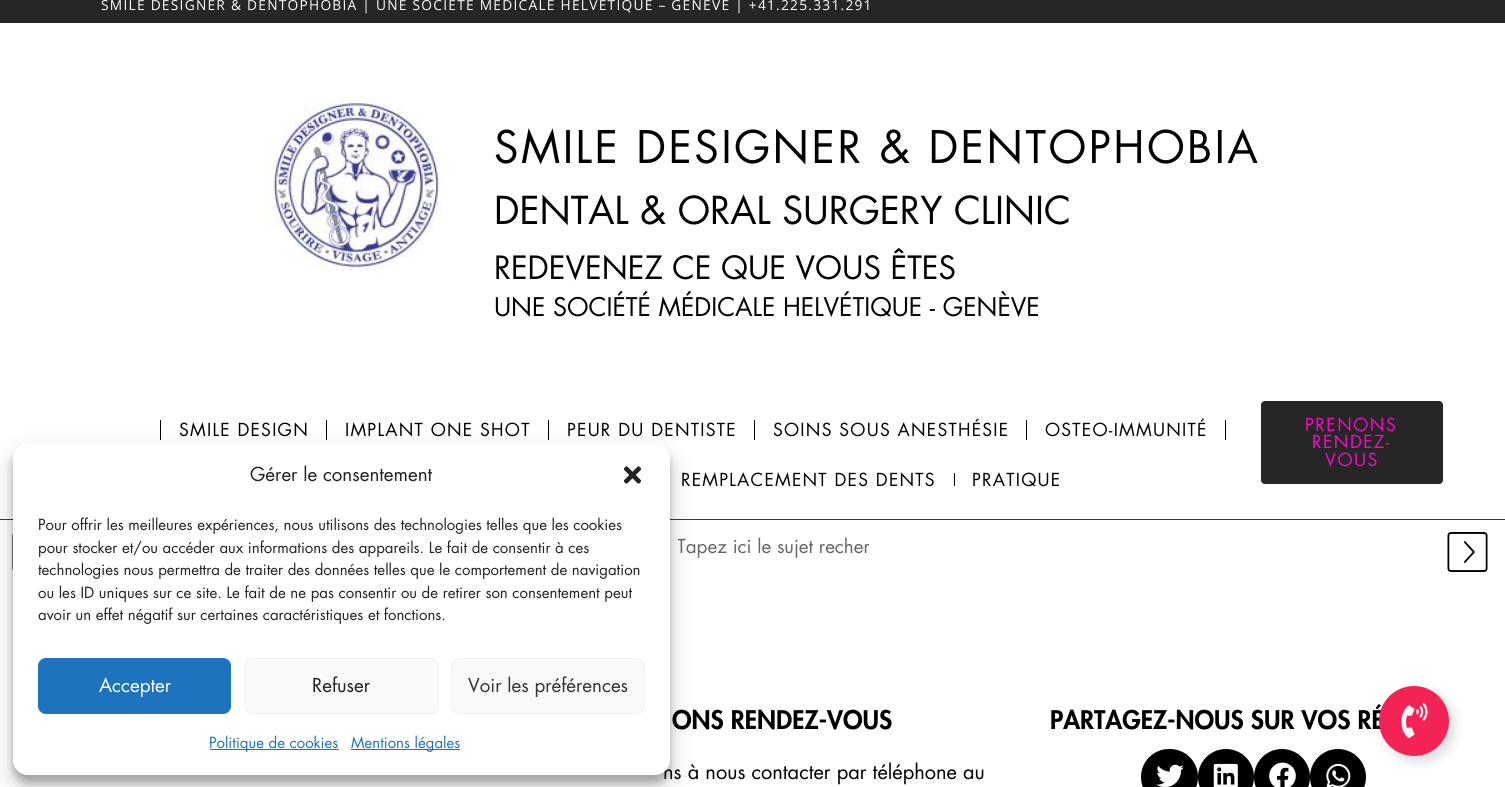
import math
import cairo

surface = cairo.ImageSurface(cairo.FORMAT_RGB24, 1505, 787)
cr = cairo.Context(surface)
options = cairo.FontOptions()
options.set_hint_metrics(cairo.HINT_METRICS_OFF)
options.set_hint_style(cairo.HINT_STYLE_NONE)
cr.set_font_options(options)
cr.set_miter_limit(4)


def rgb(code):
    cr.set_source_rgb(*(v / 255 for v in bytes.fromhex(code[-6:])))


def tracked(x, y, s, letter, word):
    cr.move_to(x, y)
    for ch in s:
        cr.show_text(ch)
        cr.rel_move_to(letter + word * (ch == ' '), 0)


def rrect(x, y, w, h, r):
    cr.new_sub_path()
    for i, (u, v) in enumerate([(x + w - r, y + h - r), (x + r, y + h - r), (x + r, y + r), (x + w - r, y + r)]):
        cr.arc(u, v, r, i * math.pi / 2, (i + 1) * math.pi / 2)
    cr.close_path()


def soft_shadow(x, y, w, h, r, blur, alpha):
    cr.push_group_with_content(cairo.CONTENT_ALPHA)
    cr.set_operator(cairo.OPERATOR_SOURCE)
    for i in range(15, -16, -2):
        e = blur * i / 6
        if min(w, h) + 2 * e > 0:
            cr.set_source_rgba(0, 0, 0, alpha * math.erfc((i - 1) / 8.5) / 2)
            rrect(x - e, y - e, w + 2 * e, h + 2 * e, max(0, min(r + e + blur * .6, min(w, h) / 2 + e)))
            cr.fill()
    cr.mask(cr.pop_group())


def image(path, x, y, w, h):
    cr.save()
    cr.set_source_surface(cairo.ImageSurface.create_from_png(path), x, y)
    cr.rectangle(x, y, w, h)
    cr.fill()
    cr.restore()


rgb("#ffffff")
cr.paint()
rgb("#272626")
cr.rectangle(0, 0, 1505, 23)
cr.fill()
image("img/1.png", 263, 97, 181, 182)
for x, y, w, h, color in [
    (0, 519, 1505, 1, "#2d3093"),
    (160, 420, 1, 20, "#000000"),
    (326, 420, 1, 20, "#000000"),
    (548, 420, 1, 20, "#000000"),
    (754, 420, 1, 20, "#000000"),
    (1026, 420, 1, 20, "#000000"),
    (1225, 420, 1, 20, "#000000"),
    (954, 473, 1, 13, "#000000"),
]:
    rgb(color)
    cr.rectangle(x, y, w, h)
    cr.fill()
rgb("#272626")
rrect(1261, 401, 182, 83, 4)
cr.fill()
image("img/2.png", 12, 532, 1, 40)
image("img/3.png", 1447, 532, 41, 40)
rgb("#000000")
soft_shadow(13, 450, 657, 333, 15, 4, 0.23)
soft_shadow(13, 455, 657, 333, 15, 12.5, 0.19)
rgb("#000000")
rrect(1141, 749, 57, 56, 28)
cr.fill()
image("img/5.png", 1156, 764, 28, 23)
cr.arc(1226, 777, 28, 0, 2 * math.pi)
cr.fill()
image("img/6.png", 1213, 763, 25, 24)
cr.arc(1282, 777, 28, 0, 2 * math.pi)
cr.fill()
image("img/7.png", 1269, 762, 27, 25)
cr.arc(1338, 777, 28, 0, 2 * math.pi)
cr.fill()
image("img/8.png", 1326, 763, 25, 24)
rgb("#000000")
soft_shadow(1384, 691, 70, 70, 35, 6, 0.15)
cr.select_font_face("Open Sans")
cr.set_font_size(13.75)
rgb("#ffffff")
tracked(101, 10, "SMILE DESIGNER & DENTOPHOBIA | UNE SOCIÉTÉ MÉDICALE HELVÉTIQUE – GENÈVE | +41.225.331.291", 1.25, 0)
cr.select_font_face("Futura")
cr.set_font_size(43.75)
rgb("#000000")
tracked(494, 163, "SMILE DESIGNER & DENTOPHOBIA", 2.5, 0)
cr.set_font_size(37.5)
cr.move_to(494, 224)
cr.show_text("DENTAL & ORAL SURGERY CLINIC")
cr.set_font_size(31.25)
cr.move_to(494, 279)
cr.show_text("REDEVENEZ CE QUE VOUS ÊTES")
cr.set_font_size(25)
cr.move_to(494, 316)
cr.show_text("UNE SOCIÉTÉ MÉDICALE HELVÉTIQUE - GENÈVE")
cr.set_font_size(17.5)
for x, y, s in [
    (179, 436, "SMILE DESIGN"),
    (345, 436, "IMPLANT ONE SHOT"),
    (567, 436, "PEUR DU DENTISTE"),
    (773, 436, "SOINS SOUS ANESTHÉSIE"),
    (1045, 436, "OSTEO-IMMUNITÉ"),
    (681, 486, "REMPLACEMENT DES DENTS"),
    (972, 486, "PRATIQUE"),
]:
    tracked(x, y, s, 1.25, 0)
rgb("#f908ca")
for x, y, s in [
    (1305, 431, "PRENONS"),
    (1312, 448, "RENDEZ-"),
    (1325, 466, "VOUS"),
]:
    tracked(x, y, s, 1.5, 0)
cr.save()
cr.rectangle(678, 535, 191, 25)
cr.clip()
cr.set_font_size(18.75)
rgb("#666666")
cr.move_to(677, 553)
cr.show_text("Tapez ici le sujet recher")
cr.restore()
cr.select_font_face("Futura Black")
cr.set_font_size(25)
rgb("#000000")
cr.move_to(672, 729)
cr.show_text("ONS RENDEZ-VOUS")
cr.select_font_face("Futura")
cr.set_font_size(20)
cr.move_to(663, 779)
cr.show_text("ns à nous contacter par téléphone au")
rgb("#ffffff")
rrect(13, 443, 657, 332, 15)
cr.fill()
cr.set_font_size(15)
rgb("#222222")
for x, y, s in [
    (38, 620, "avoir un effet négatif sur certaines caractéristiques et fonctions."),
    (38, 598, "ou les ID uniques sur ce site. Le fait de ne pas consentir ou de retirer son consentement peut"),
    (38, 575, "technologies nous permettra de traiter des données telles que le comportement de navigation"),
    (38, 553, "pour stocker et/ou accéder aux informations des appareils. Le fait de consentir à ces"),
    (38, 530, "Pour offrir les meilleures expériences, nous utilisons des technologies telles que les cookies"),
]:
    cr.move_to(x, y)
    cr.show_text(s)
image("img/4.png", 623, 466, 19, 18)
rgb("#1e73be")
cr.rectangle(351, 749, 109, 1)
cr.fill()
cr.move_to(351, 748)
cr.show_text("Mentions légales")
cr.rectangle(210, 749, 129, 1)
cr.fill()
cr.move_to(209, 748)
cr.show_text("Politique de cookies")
rgb("#f9f9f9")
rrect(451.5, 658.5, 193, 55, 7.5)
cr.fill_preserve()
rgb("#f2f2f2")
cr.set_line_width(1)
cr.stroke()
cr.set_font_size(18.75)
rgb("#333333")
cr.move_to(468, 692)
cr.show_text("Voir les préférences")
rgb("#f9f9f9")
rrect(244.5, 658.5, 194, 55, 7.5)
cr.fill_preserve()
rgb("#f2f2f2")
cr.stroke()
rgb("#222222")
cr.move_to(312, 692)
cr.show_text("Refuser")
rgb("#1e73be")
rrect(38.5, 658.5, 192, 55, 7.5)
cr.fill_preserve()
cr.stroke()
rgb("#ffffff")
cr.move_to(99, 692)
cr.show_text("Accepter")
rgb("#222222")
cr.move_to(250, 481)
cr.show_text("Gérer le consentement")
cr.select_font_face("Futura Black")
cr.set_font_size(25)
rgb("#000000")
cr.move_to(1050, 729)
cr.show_text("PARTAGEZ-NOUS SUR VOS RÉ")
rgb("#f42355")
cr.new_path()
cr.arc(1414, 721, 35, 0, 2 * math.pi)
cr.fill()
image("img/9.png", 1401, 703, 27, 36)
surface.write_to_png("page.png")
